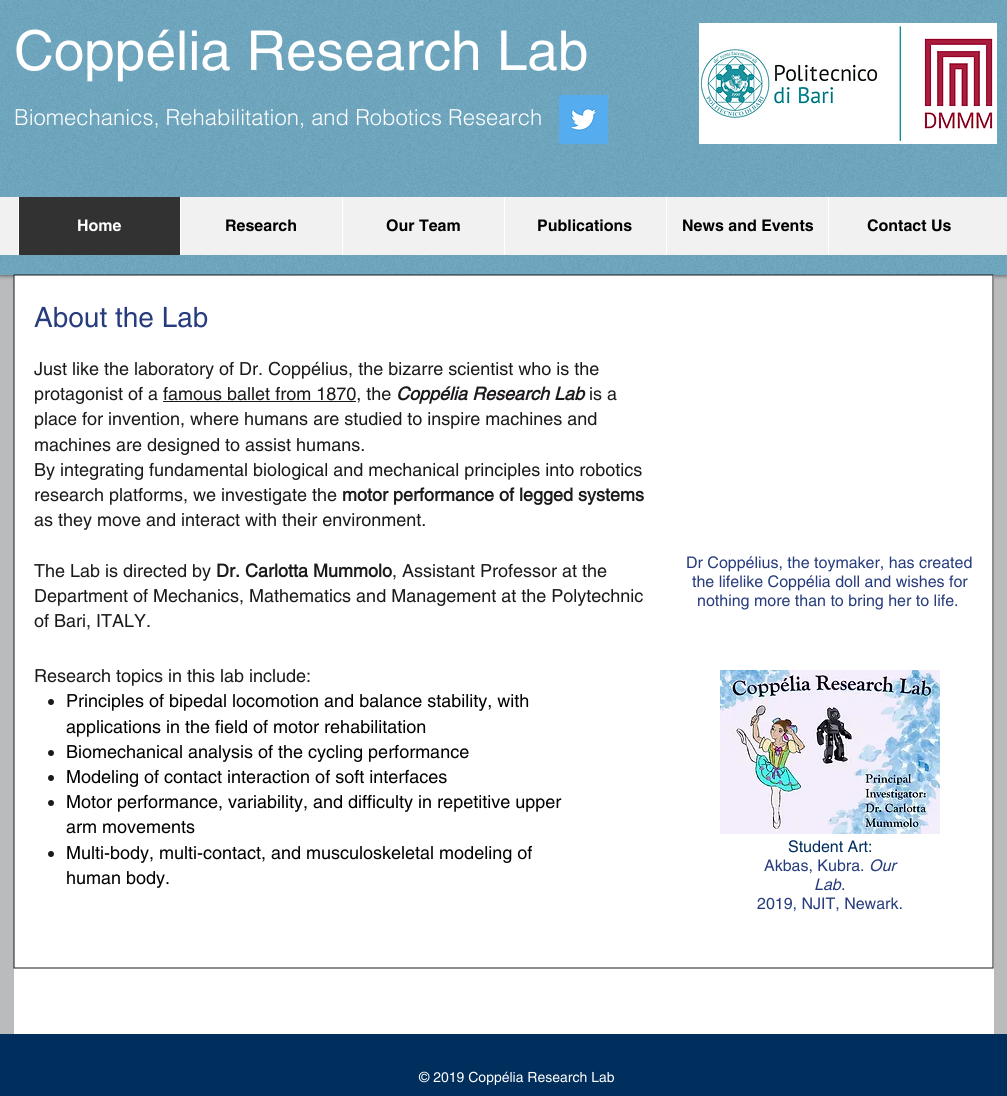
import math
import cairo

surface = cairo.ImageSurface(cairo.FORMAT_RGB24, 1007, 1096)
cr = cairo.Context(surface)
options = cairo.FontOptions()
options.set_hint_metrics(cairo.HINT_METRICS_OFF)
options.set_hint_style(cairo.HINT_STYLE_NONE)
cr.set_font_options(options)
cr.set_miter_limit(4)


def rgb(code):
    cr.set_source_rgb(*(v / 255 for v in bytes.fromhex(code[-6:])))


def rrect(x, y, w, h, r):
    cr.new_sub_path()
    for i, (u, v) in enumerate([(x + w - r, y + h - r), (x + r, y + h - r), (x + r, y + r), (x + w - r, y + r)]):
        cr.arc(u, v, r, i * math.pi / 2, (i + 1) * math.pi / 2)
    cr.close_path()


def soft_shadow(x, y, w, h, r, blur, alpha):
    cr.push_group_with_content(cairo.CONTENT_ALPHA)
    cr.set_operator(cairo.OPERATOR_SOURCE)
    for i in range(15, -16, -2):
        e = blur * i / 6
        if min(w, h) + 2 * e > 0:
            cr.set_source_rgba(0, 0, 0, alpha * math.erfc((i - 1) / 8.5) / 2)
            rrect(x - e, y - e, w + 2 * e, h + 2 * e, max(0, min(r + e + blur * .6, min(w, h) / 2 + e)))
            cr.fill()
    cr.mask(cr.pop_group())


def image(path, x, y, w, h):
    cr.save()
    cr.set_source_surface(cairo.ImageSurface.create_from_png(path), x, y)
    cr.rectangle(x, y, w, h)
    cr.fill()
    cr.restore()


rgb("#b9bbbd")
cr.paint()
rgb("#000000")
soft_shadow(0, -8, 1007, 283, 0, 2.5, 0.7)
rgb("#70a9c2")
cr.rectangle(0, 0, 1007, 275)
cr.fill()
image("img/1.png", 0, 0, 1007, 275)
image("img/2.png", 699, 23, 298, 121)
image("img/3.png", 559, 95, 49, 49)
for x, y, w, h, color in [
    (0, 197, 1007, 58, "#f1f1f1"),
    (19, 197, 161, 58, "#323232"),
    (18, 197, 1, 58, "#ffffff"),
    (180, 197, 1, 58, "#ffffff"),
    (342, 197, 1, 58, "#ffffff"),
    (504, 197, 1, 58, "#ffffff"),
    (666, 197, 1, 58, "#ffffff"),
    (828, 197, 1, 58, "#ffffff"),
    (14, 275, 980, 759, "#ffffff"),
]:
    rgb(color)
    cr.rectangle(x, y, w, h)
    cr.fill()
cr.new_path()
cr.move_to(993, 275)
cr.line_to(993, 968)
cr.line_to(14, 968)
cr.line_to(14, 275)
cr.close_path()
rgb("#1c191c")
cr.set_line_width(1)
cr.stroke()
cr.rectangle(163, 401, 193, 1)
cr.fill()
cr.arc(51, 702, 3, 0, 2 * math.pi)
cr.fill()
cr.arc(51, 753, 3, 0, 2 * math.pi)
cr.fill()
cr.arc(51, 778, 3, 0, 2 * math.pi)
cr.fill()
cr.arc(51, 803, 3, 0, 2 * math.pi)
cr.fill()
cr.arc(51, 854, 3, 0, 2 * math.pi)
cr.fill()
image("img/4.png", 720, 670, 220, 164)
rgb("#002e5d")
cr.rectangle(0, 1034, 1007, 62)
cr.fill()
cr.select_font_face("helvetica")
cr.set_font_size(55)
rgb("#ffffff")
cr.move_to(14, 70)
cr.show_text("Coppélia Research Lab")
cr.select_font_face("helvetica Light")
cr.set_font_size(22)
cr.move_to(14, 125)
cr.show_text("Biomechanics, Rehabilitation, and Robotics Research")
cr.select_font_face("helvetica", cairo.FONT_SLANT_NORMAL, cairo.FONT_WEIGHT_BOLD)
cr.set_font_size(16)
cr.move_to(77, 231)
cr.show_text("Home")
rgb("#000000")
for x, y, s in [
    (225, 231, "Research"),
    (386, 231, "Our Team"),
    (537, 231, "Publications"),
    (682, 231, "News and Events"),
    (867, 231, "Contact Us"),
]:
    cr.move_to(x, y)
    cr.show_text(s)
cr.select_font_face("helvetica")
cr.set_font_size(28)
rgb("#273c7d")
cr.move_to(34, 327)
cr.show_text("About the Lab")
cr.set_font_size(18)
rgb("#1c191c")
cr.move_to(34, 375)
cr.show_text("Just like the laboratory of Dr. Coppélius, the bizarre scientist who is the")
cr.move_to(34, 400)
cr.show_text("protagonist of a famous ballet from 1870, the")
cr.select_font_face("helvetica", cairo.FONT_SLANT_ITALIC, cairo.FONT_WEIGHT_BOLD)
cr.move_to(396, 400)
cr.show_text("Coppélia Research Lab")
cr.select_font_face("helvetica")
for x, y, s in [
    (589, 400, "is a"),
    (34, 425, "place for invention, where humans are studied to inspire machines and"),
    (34, 451, "machines are designed to assist humans."),
    (34, 476, "By integrating fundamental biological and mechanical principles into robotics"),
    (34, 501, "research platforms, we investigate the"),
]:
    cr.move_to(x, y)
    cr.show_text(s)
cr.select_font_face("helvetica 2", cairo.FONT_SLANT_NORMAL, cairo.FONT_WEIGHT_BOLD)
cr.move_to(342, 501)
cr.show_text("motor performance of legged systems")
cr.select_font_face("helvetica")
cr.move_to(34, 526)
cr.show_text("as they move and interact with their environment.")
cr.move_to(34, 577)
cr.show_text("The Lab is directed by")
cr.select_font_face("helvetica 2", cairo.FONT_SLANT_NORMAL, cairo.FONT_WEIGHT_BOLD)
cr.move_to(216, 577)
cr.show_text("Dr. Carlotta Mummolo")
cr.select_font_face("helvetica")
for x, y, s in [
    (392, 577, ", Assistant Professor at the"),
    (34, 602, "Department of Mechanics, Mathematics and Management at the Polytechnic"),
    (34, 627, "of Bari, ITALY."),
]:
    cr.move_to(x, y)
    cr.show_text(s)
cr.set_font_size(16)
rgb("#273c7d")
for x, y, s in [
    (686, 568, "Dr Coppélius, the toymaker, has created"),
    (692, 587, "the lifelike Coppélia doll and wishes for"),
    (697, 606, "nothing more than to bring her to life."),
]:
    cr.move_to(x, y)
    cr.show_text(s)
cr.set_font_size(18)
rgb("#1c191c")
cr.move_to(34, 682)
cr.show_text("Research topics in this lab include:")
rgb("#000000")
for x, y, s in [
    (66, 707, "Principles of bipedal locomotion and balance stability, with"),
    (66, 733, "applications in the field of motor rehabilitation"),
    (66, 758, "Biomechanical analysis of the cycling performance"),
    (66, 783, "Modeling of contact interaction of soft interfaces"),
    (66, 808, "Motor performance, variability, and difficulty in repetitive upper"),
    (66, 833, "arm movements"),
    (66, 859, "Multi-body, multi-contact, and musculoskeletal modeling of"),
    (66, 884, "human body."),
]:
    cr.move_to(x, y)
    cr.show_text(s)
cr.set_font_size(16)
rgb("#002e5d")
cr.move_to(788, 852)
cr.show_text("Student Art:")
rgb("#273c7d")
cr.move_to(764, 871)
cr.show_text("Akbas, Kubra.")
cr.select_font_face("helvetica", cairo.FONT_SLANT_ITALIC)
cr.move_to(869, 871)
cr.show_text("Our")
cr.move_to(814, 890)
cr.show_text("Lab")
cr.select_font_face("helvetica")
cr.move_to(841, 890)
cr.show_text(".")
cr.move_to(757, 909)
cr.show_text("2019, NJIT, Newark.")
cr.set_font_size(14)
rgb("#ffffff")
cr.move_to(419, 1082)
cr.show_text("© 2019 Coppélia Research Lab")
surface.write_to_png("page.png")
